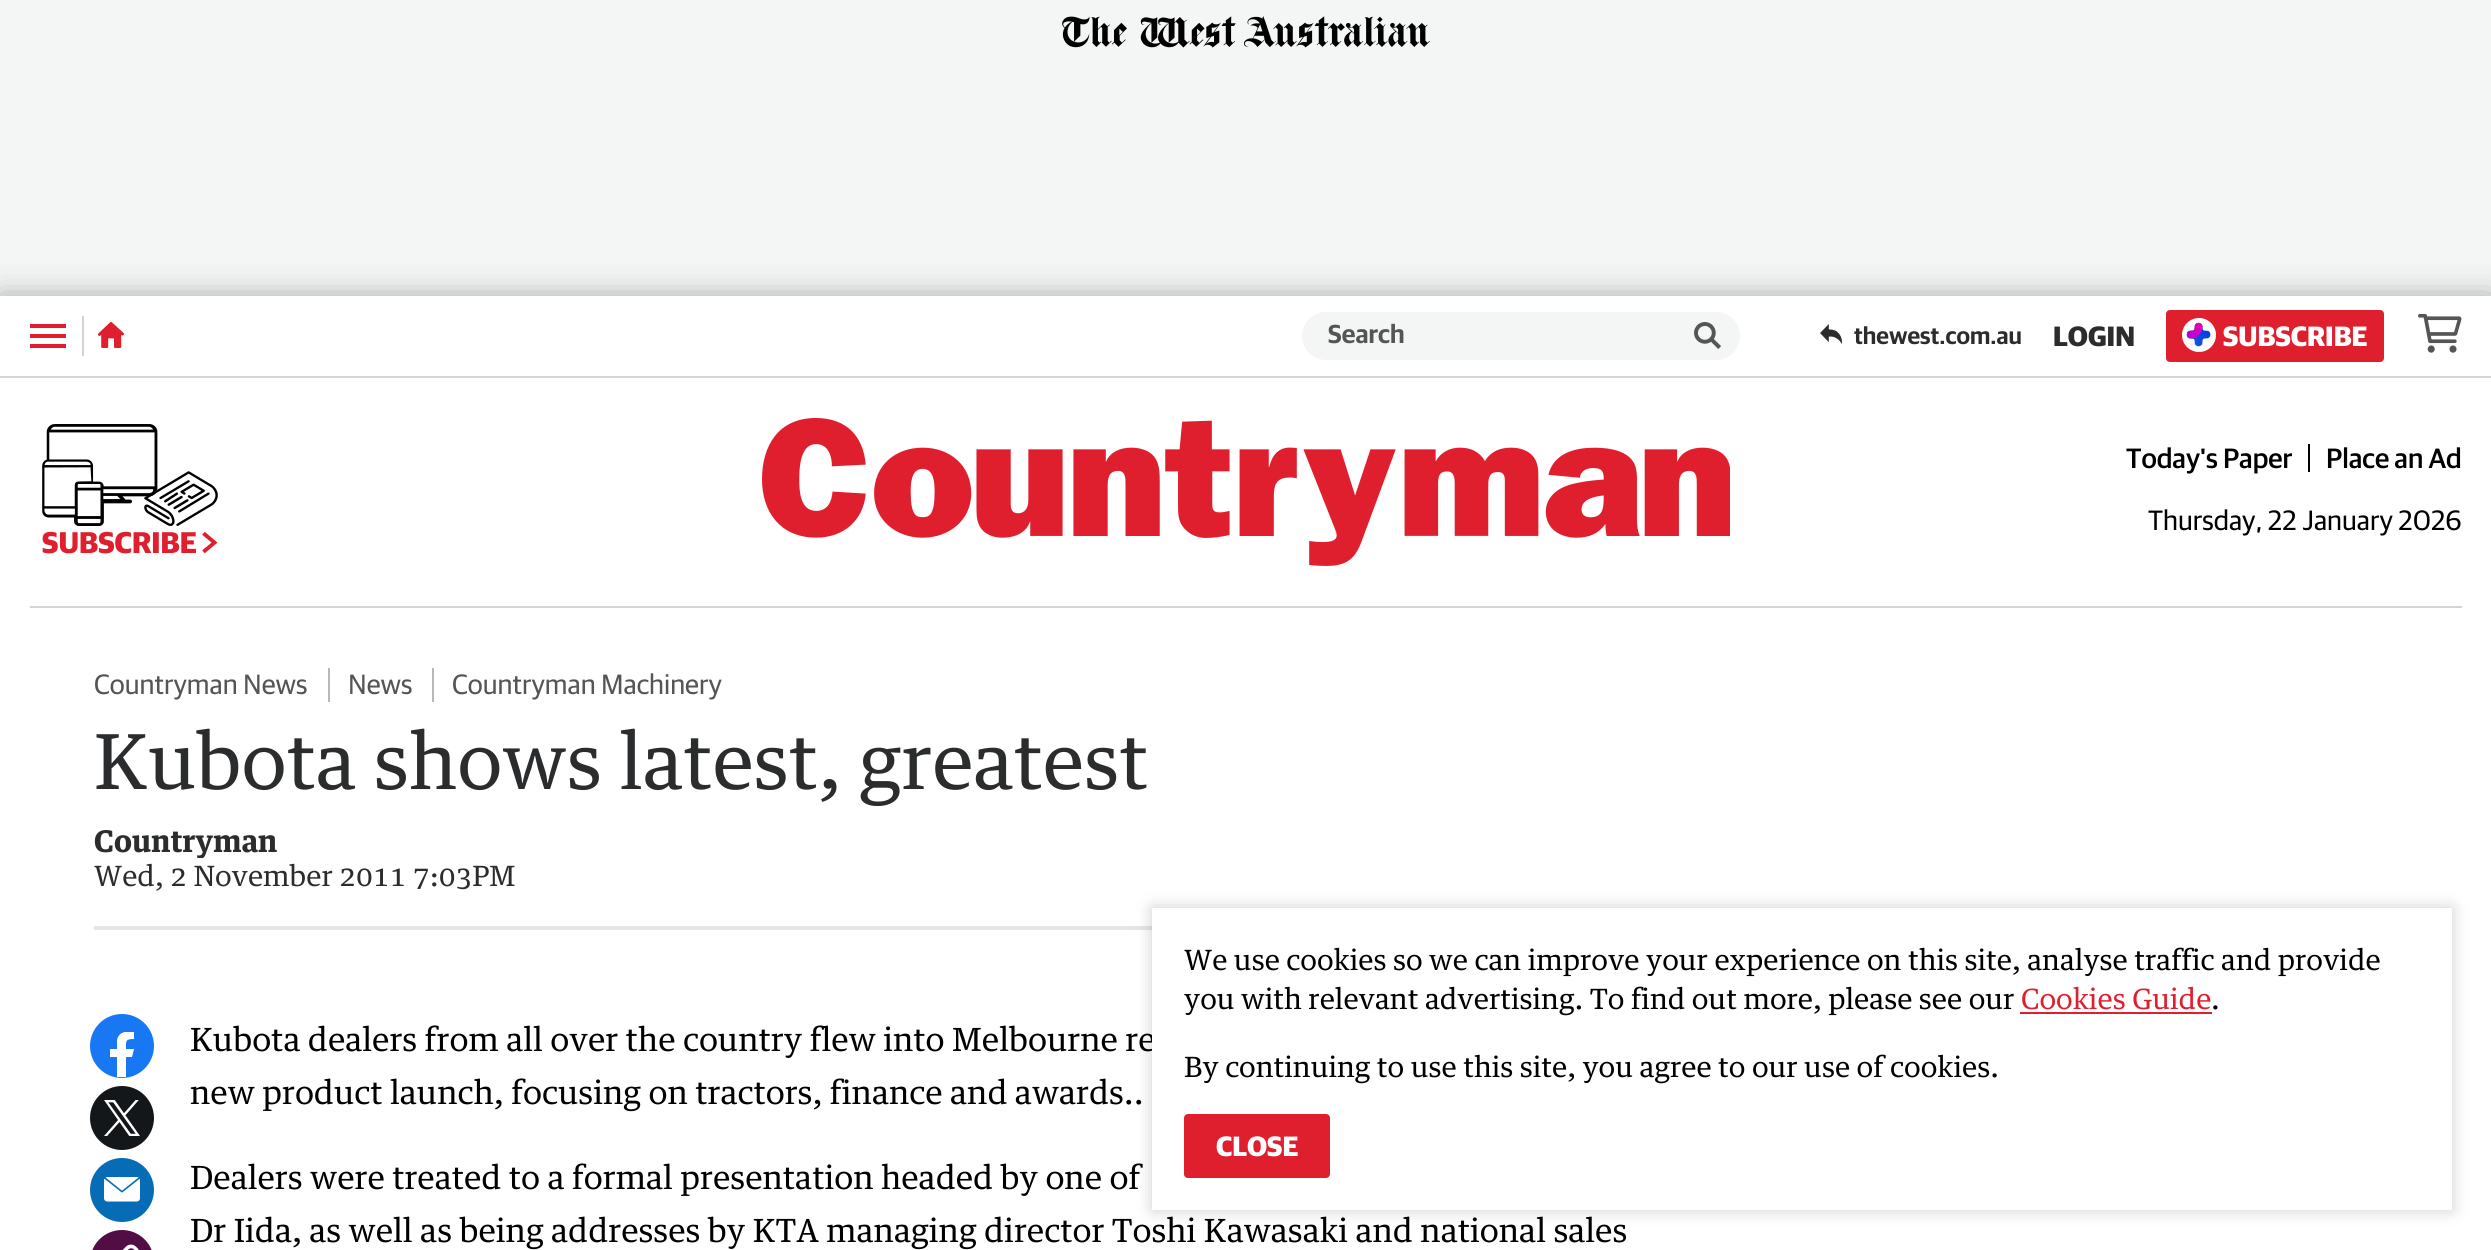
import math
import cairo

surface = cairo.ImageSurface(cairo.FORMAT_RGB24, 2491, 1250)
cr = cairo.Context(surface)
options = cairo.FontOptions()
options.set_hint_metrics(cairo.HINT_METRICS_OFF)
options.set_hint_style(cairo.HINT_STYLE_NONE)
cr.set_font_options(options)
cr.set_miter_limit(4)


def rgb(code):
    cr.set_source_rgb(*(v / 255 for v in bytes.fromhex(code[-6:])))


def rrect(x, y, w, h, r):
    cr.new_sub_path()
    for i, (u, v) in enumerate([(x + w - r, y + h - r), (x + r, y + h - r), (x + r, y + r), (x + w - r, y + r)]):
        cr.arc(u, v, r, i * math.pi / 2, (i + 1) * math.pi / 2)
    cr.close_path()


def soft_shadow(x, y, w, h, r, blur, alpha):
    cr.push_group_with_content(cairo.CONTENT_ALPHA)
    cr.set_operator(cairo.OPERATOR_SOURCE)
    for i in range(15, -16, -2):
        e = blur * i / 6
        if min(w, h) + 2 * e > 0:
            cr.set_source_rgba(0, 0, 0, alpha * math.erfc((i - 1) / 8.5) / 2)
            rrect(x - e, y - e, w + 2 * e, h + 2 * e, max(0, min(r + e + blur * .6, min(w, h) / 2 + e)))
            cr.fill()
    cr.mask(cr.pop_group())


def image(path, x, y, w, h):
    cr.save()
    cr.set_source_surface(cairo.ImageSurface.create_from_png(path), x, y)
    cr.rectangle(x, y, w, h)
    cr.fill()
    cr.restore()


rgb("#ffffff")
cr.paint()
rgb("#f4f5f5")
cr.rectangle(0, 0, 2491, 296)
cr.fill()
image("img/1.png", 1062, 16, 368, 32)
cr.save()
cr.rectangle(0, 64, 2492, 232)
cr.clip()
rgb("#000000")
soft_shadow(0, 298, 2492, 20, 0, 16, 0.35)
cr.restore()
for x, y, w, h, color in [
    (0, 376, 2491, 2, "#d2d5d6"),
    (30, 334, 36, 4, "#e01f2e"),
    (30, 324, 36, 4, "#e01f2e"),
    (30, 344, 36, 4, "#e01f2e"),
    (82, 316, 2, 40, "#d2d5d6"),
]:
    rgb(color)
    cr.rectangle(x, y, w, h)
    cr.fill()
image("img/2.png", 98, 322, 26, 26)
rgb("#f4f5f5")
rrect(1302, 312, 438, 48, 24)
cr.fill()
image("img/3.png", 1694, 322, 27, 27)
image("img/4.png", 1820, 324, 22, 20)
rgb("#e01f2e")
rrect(2166, 310, 218, 52, 4)
cr.fill()
rgb("#ffffff")
cr.arc(2199, 335, 17, 0, 2 * math.pi)
cr.fill()
image("img/5.png", 2186, 322, 25, 25)
image("img/6.png", 2418, 314, 44, 39)
rgb("#d2d5d6")
cr.rectangle(30, 606, 2432, 2)
cr.fill()
image("img/7.png", 762, 418, 968, 148)
rgb("#000000")
cr.rectangle(2308, 444, 2, 28)
cr.fill()
image("img/8.png", 42, 424, 176, 102)
image("img/9.png", 202, 532, 16, 22)
for x, y, w, h, color in [
    (328, 668, 2, 34, "#b5b9ba"),
    (432, 668, 2, 34, "#b5b9ba"),
    (94, 926, 1058, 4, "#e5e5e5"),
]:
    rgb(color)
    cr.rectangle(x, y, w, h)
    cr.fill()
rgb("#1877f2")
cr.arc(122, 1046, 31, 0, 2 * math.pi)
cr.fill_preserve()
cr.stroke()
cr.save()
cr.rectangle(100, 1032, 46, 46)
cr.clip()
rgb("#ffffff")
cr.new_path()
cr.move_to(132, 1057)
cr.line_to(134, 1049)
cr.line_to(126, 1049)
cr.curve_to(126, 1041, 125, 1039, 134, 1039)
cr.line_to(134, 1032)
cr.curve_to(127, 1031, 119, 1031, 117, 1040)
cr.line_to(117, 1049)
cr.line_to(110, 1049)
cr.line_to(110, 1057)
cr.line_to(117, 1057)
cr.line_to(117, 1077)
cr.line_to(126, 1077)
cr.line_to(126, 1057)
cr.close_path()
cr.fill()
cr.restore()
rgb("#14171a")
cr.arc(122, 1118, 31, 0, 2 * math.pi)
cr.fill_preserve()
cr.stroke()
image("img/10.png", 104, 1100, 36, 36)
rgb("#066cb6")
cr.arc(122, 1190, 31, 0, 2 * math.pi)
cr.fill_preserve()
cr.stroke()
image("img/11.png", 104, 1177, 36, 25)
rgb("#520e44")
rrect(91, 1231, 62, 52, 31)
cr.fill_preserve()
cr.stroke()
image("img/12.png", 122, 1244, 17, 6)
rgb("#000000")
soft_shadow(1152, 908, 1300, 302, 0, 8, 0.2)
cr.select_font_face("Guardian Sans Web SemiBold")
cr.set_font_size(26)
rgb("#535556")
cr.move_to(1328, 343)
cr.show_text("Search")
cr.set_font_size(24)
rgb("#2b2c2d")
cr.move_to(1854, 344)
cr.show_text("thewest.com.au")
cr.select_font_face("Guardian Sans Web", cairo.FONT_SLANT_NORMAL, cairo.FONT_WEIGHT_BOLD)
cr.set_font_size(28)
cr.move_to(2053, 346)
cr.show_text("LOGIN")
rgb("#ffffff")
cr.move_to(2223, 346)
cr.show_text("SUBSCRIBE")
cr.select_font_face("Guardian Sans Web Medium")
rgb("#000000")
cr.move_to(2126, 468)
cr.show_text("Today's Paper")
cr.move_to(2326, 468)
cr.show_text("Place an Ad")
cr.select_font_face("Guardian Sans Web")
cr.move_to(2148, 530)
cr.show_text("Thursday, 22 January 2026")
cr.select_font_face("Guardian Sans Web", cairo.FONT_SLANT_NORMAL, cairo.FONT_WEIGHT_BOLD)
cr.set_font_size(30)
rgb("#e01f2e")
cr.move_to(42, 553)
cr.show_text("SUBSCRIBE")
cr.select_font_face("Guardian Sans Web")
cr.set_font_size(28)
rgb("#535556")
for x, y, s in [
    (94, 694, "Countryman News"),
    (348, 694, "News"),
    (452, 694, "Countryman Machinery"),
]:
    cr.move_to(x, y)
    cr.show_text(s)
cr.select_font_face("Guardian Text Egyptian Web")
cr.set_font_size(76)
rgb("#2b2c2d")
cr.move_to(94, 789)
cr.show_text("Kubota shows latest, greatest")
cr.save()
cr.rectangle(94, 822, 450, 36)
cr.clip()
cr.select_font_face("Guardian Text Egyptian Web", cairo.FONT_SLANT_NORMAL, cairo.FONT_WEIGHT_BOLD)
cr.set_font_size(30)
cr.move_to(94, 852)
cr.show_text("Countryman")
cr.restore()
cr.set_font_size(28)
cr.move_to(94, 886)
cr.show_text("Wed, 2 November 2011 7:03PM")
cr.set_font_size(32)
rgb("#000000")
for x, y, s in [
    (190, 1051, "Kubota dealers from all over the country flew into Melbourne re"),
    (190, 1104, "new product launch, focusing on tractors, finance and awards.."),
    (190, 1189, "Dealers were treated to a formal presentation headed by one of"),
    (190, 1242, "Dr Iida, as well as being addresses by KTA managing director Toshi Kawasaki and national sales"),
]:
    cr.move_to(x, y)
    cr.show_text(s)
rgb("#ffffff")
cr.rectangle(1152, 908, 1300, 302)
cr.fill()
cr.set_font_size(28)
rgb("#000000")
cr.move_to(1184, 970)
cr.show_text("We use cookies so we can improve your experience on this site, analyse traffic and provide")
cr.move_to(1184, 1009)
cr.show_text("you with relevant advertising. To find out more, please see our")
rgb("#e01f2e")
cr.move_to(2021, 1009)
cr.show_text("Cookies Guide")
cr.rectangle(2020, 1012, 192, 2)
cr.fill()
rgb("#000000")
cr.move_to(2211, 1009)
cr.show_text(".")
cr.move_to(1184, 1077)
cr.show_text("By continuing to use this site, you agree to our use of cookies.")
rgb("#e01f2e")
rrect(1184, 1114, 146, 64, 4)
cr.fill()
cr.select_font_face("Guardian Sans Web", cairo.FONT_SLANT_NORMAL, cairo.FONT_WEIGHT_BOLD)
rgb("#ffffff")
cr.move_to(1216, 1156)
cr.show_text("CLOSE")
surface.write_to_png("page.png")
